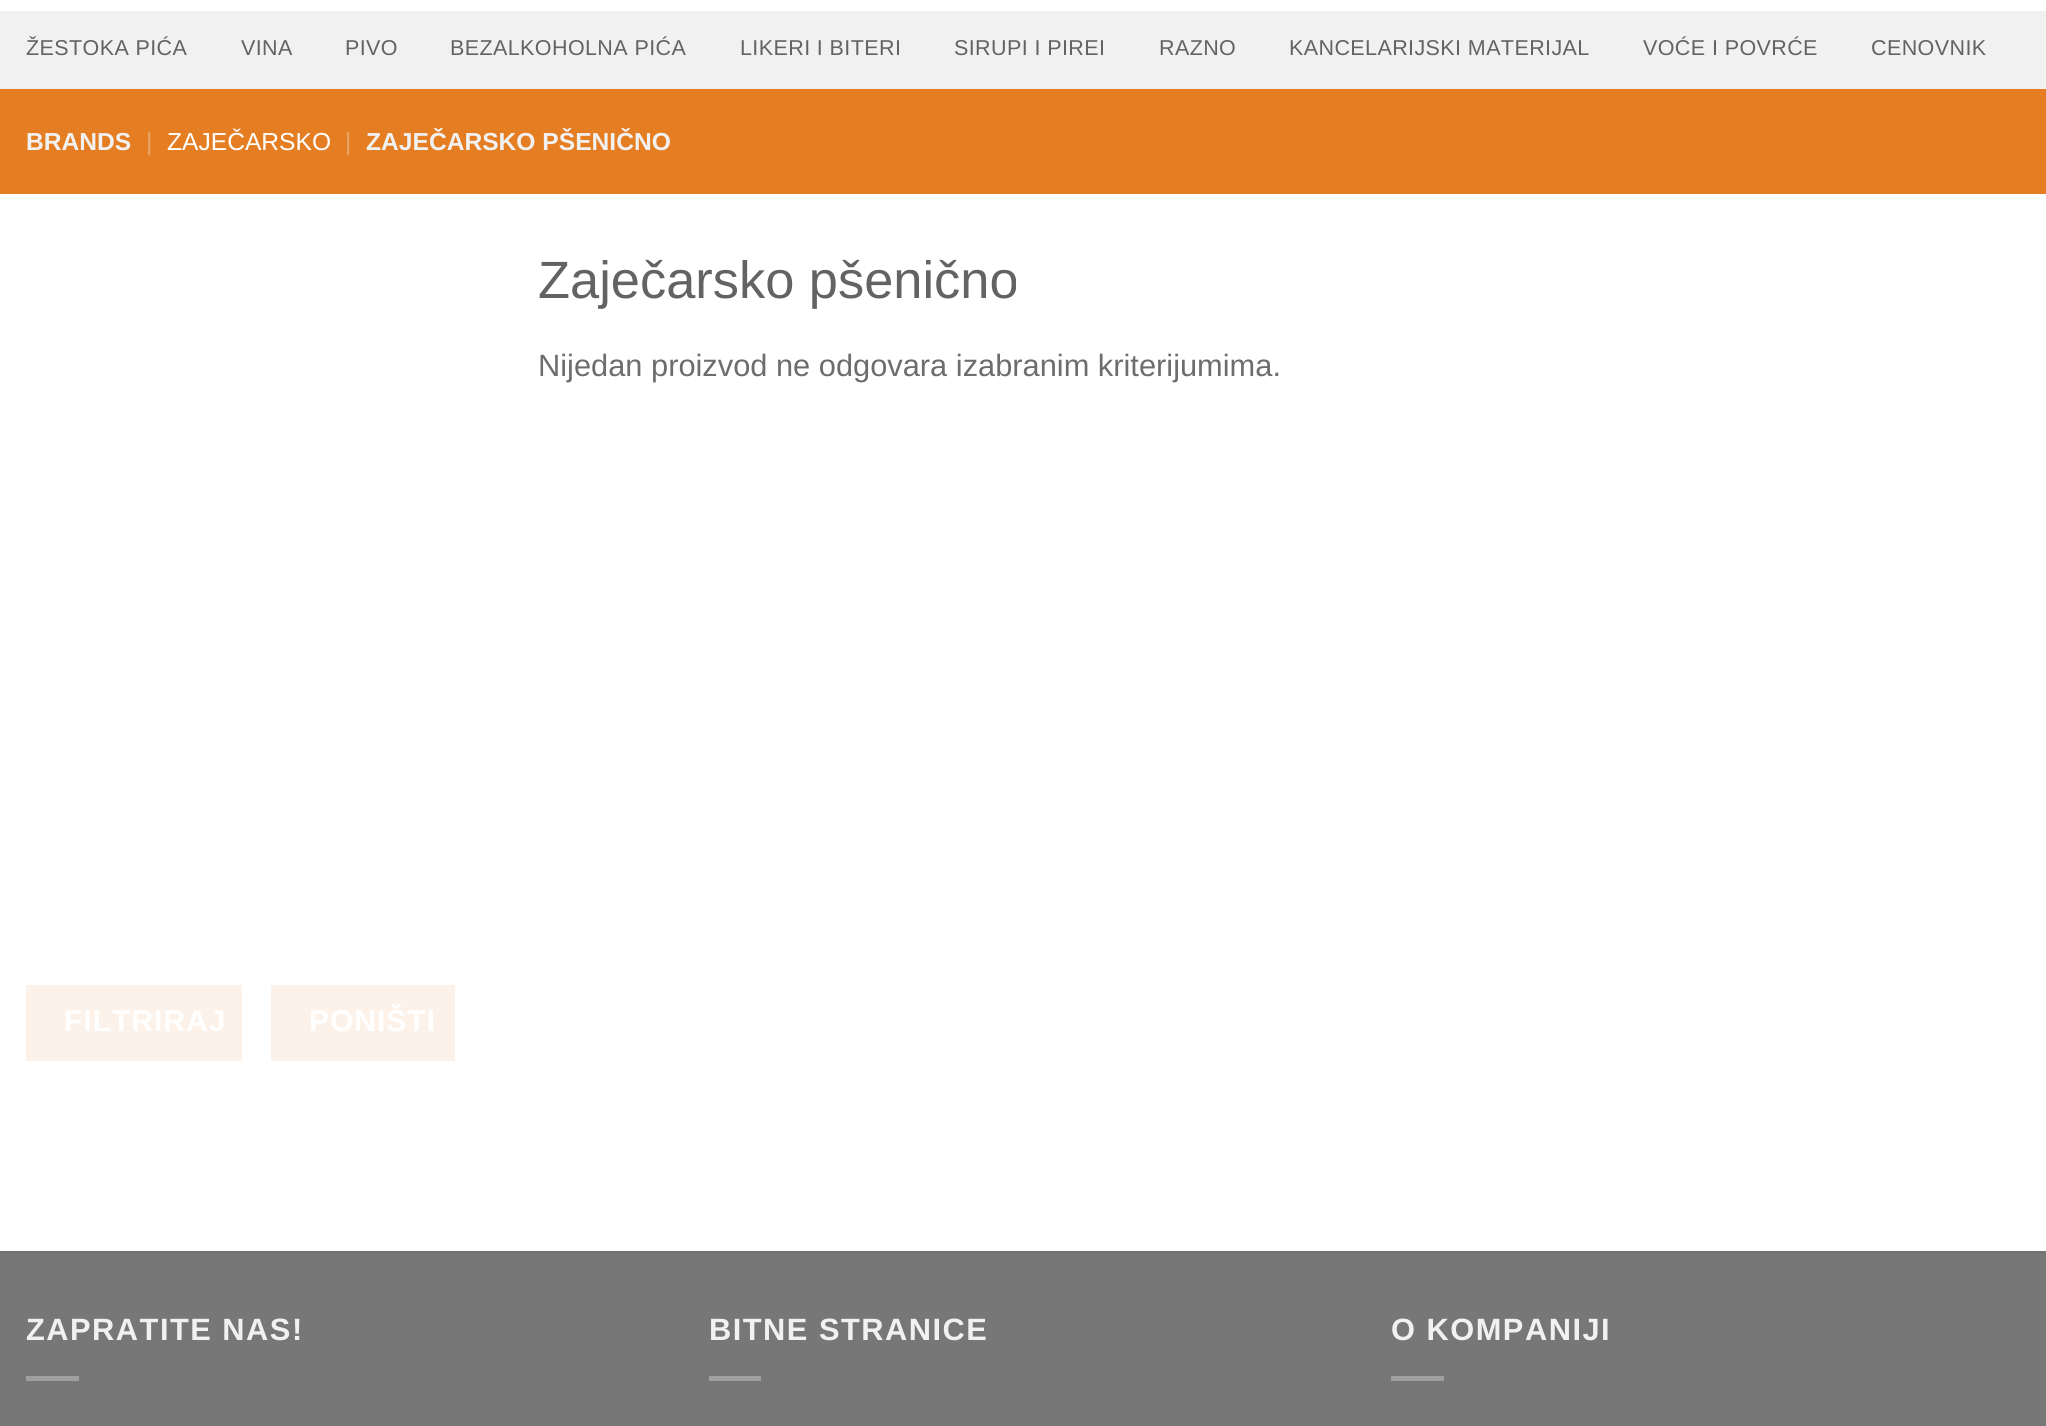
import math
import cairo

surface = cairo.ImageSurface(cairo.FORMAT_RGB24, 2046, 1426)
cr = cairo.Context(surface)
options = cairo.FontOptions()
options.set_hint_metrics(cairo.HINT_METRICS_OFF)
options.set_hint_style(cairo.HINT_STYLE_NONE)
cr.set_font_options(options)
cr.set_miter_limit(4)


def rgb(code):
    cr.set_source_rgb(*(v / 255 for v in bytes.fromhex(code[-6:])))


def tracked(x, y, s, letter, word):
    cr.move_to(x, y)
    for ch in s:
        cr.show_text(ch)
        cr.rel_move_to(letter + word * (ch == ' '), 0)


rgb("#ffffff")
cr.paint()
for x, y, w, h, color in [
    (0, 11, 2046, 78, "#f1f1f1"),
    (0, 89, 2046, 105, "#e57e23"),
    (26, 985, 216, 76, "#fcf2e9"),
    (271, 985, 184, 76, "#fcf2e9"),
    (0, 1253, 2046, 173, "#777777"),
    (0, 1251, 2046, 2, "#717171"),
    (26, 1376, 53, 5, "#a0a0a0"),
    (709, 1376, 52, 5, "#a0a0a0"),
    (1391, 1376, 53, 5, "#a0a0a0"),
]:
    rgb(color)
    cr.rectangle(x, y, w, h)
    cr.fill()
cr.select_font_face("Liberation Sans")
cr.set_font_size(21.5)
rgb("#636363")
for x, y, s in [
    (26, 55, "ŽESTOKA PIĆA"),
    (241, 55, "VINA"),
    (345, 55, "PIVO"),
    (450, 55, "BEZALKOHOLNA PIĆA"),
    (740, 55, "LIKERI I BITERI"),
    (954, 55, "SIRUPI I PIREI"),
    (1159, 55, "RAZNO"),
    (1289, 55, "KANCELARIJSKI MATERIJAL"),
    (1643, 55, "VOĆE I POVRĆE"),
    (1871, 55, "CENOVNIK"),
]:
    tracked(x, y, s, 0.4, 0)
cr.select_font_face("Liberation Sans", cairo.FONT_SLANT_NORMAL, cairo.FONT_WEIGHT_BOLD)
cr.set_font_size(24.6)
rgb("#f1f1f1")
cr.move_to(26, 150)
cr.show_text("BRANDS")
cr.select_font_face("Liberation Sans")
rgb("#e9a66b")
cr.move_to(146, 150)
cr.show_text("|")
rgb("#ffffff")
cr.move_to(167, 150)
cr.show_text("ZAJEČARSKO")
rgb("#e9a66b")
cr.move_to(345, 150)
cr.show_text("|")
cr.select_font_face("Liberation Sans", cairo.FONT_SLANT_NORMAL, cairo.FONT_WEIGHT_BOLD)
rgb("#f1f1f1")
cr.move_to(366, 150)
cr.show_text("ZAJEČARSKO PŠENIČNO")
cr.select_font_face("Liberation Sans")
cr.set_font_size(52.4)
rgb("#636363")
cr.move_to(538, 298)
cr.show_text("Zaječarsko pšenično")
cr.set_font_size(30.8)
rgb("#6d6d6d")
cr.move_to(538, 376)
cr.show_text("Nijedan proizvod ne odgovara izabranim kriterijumima.")
cr.select_font_face("Liberation Sans", cairo.FONT_SLANT_NORMAL, cairo.FONT_WEIGHT_BOLD)
cr.set_font_size(30)
rgb("#ffffff")
tracked(64, 1031, "FILTRIRAJ", 1, 0)
tracked(309, 1031, "PONIŠTI", 1, 0)
cr.set_font_size(30.8)
rgb("#f1f1f1")
for x, y, s in [
    (26, 1340, "ZAPRATITE NAS!"),
    (709, 1340, "BITNE STRANICE"),
    (1391, 1340, "O KOMPANIJI"),
]:
    tracked(x, y, s, 1.5, 0)
surface.write_to_png("page.png")
